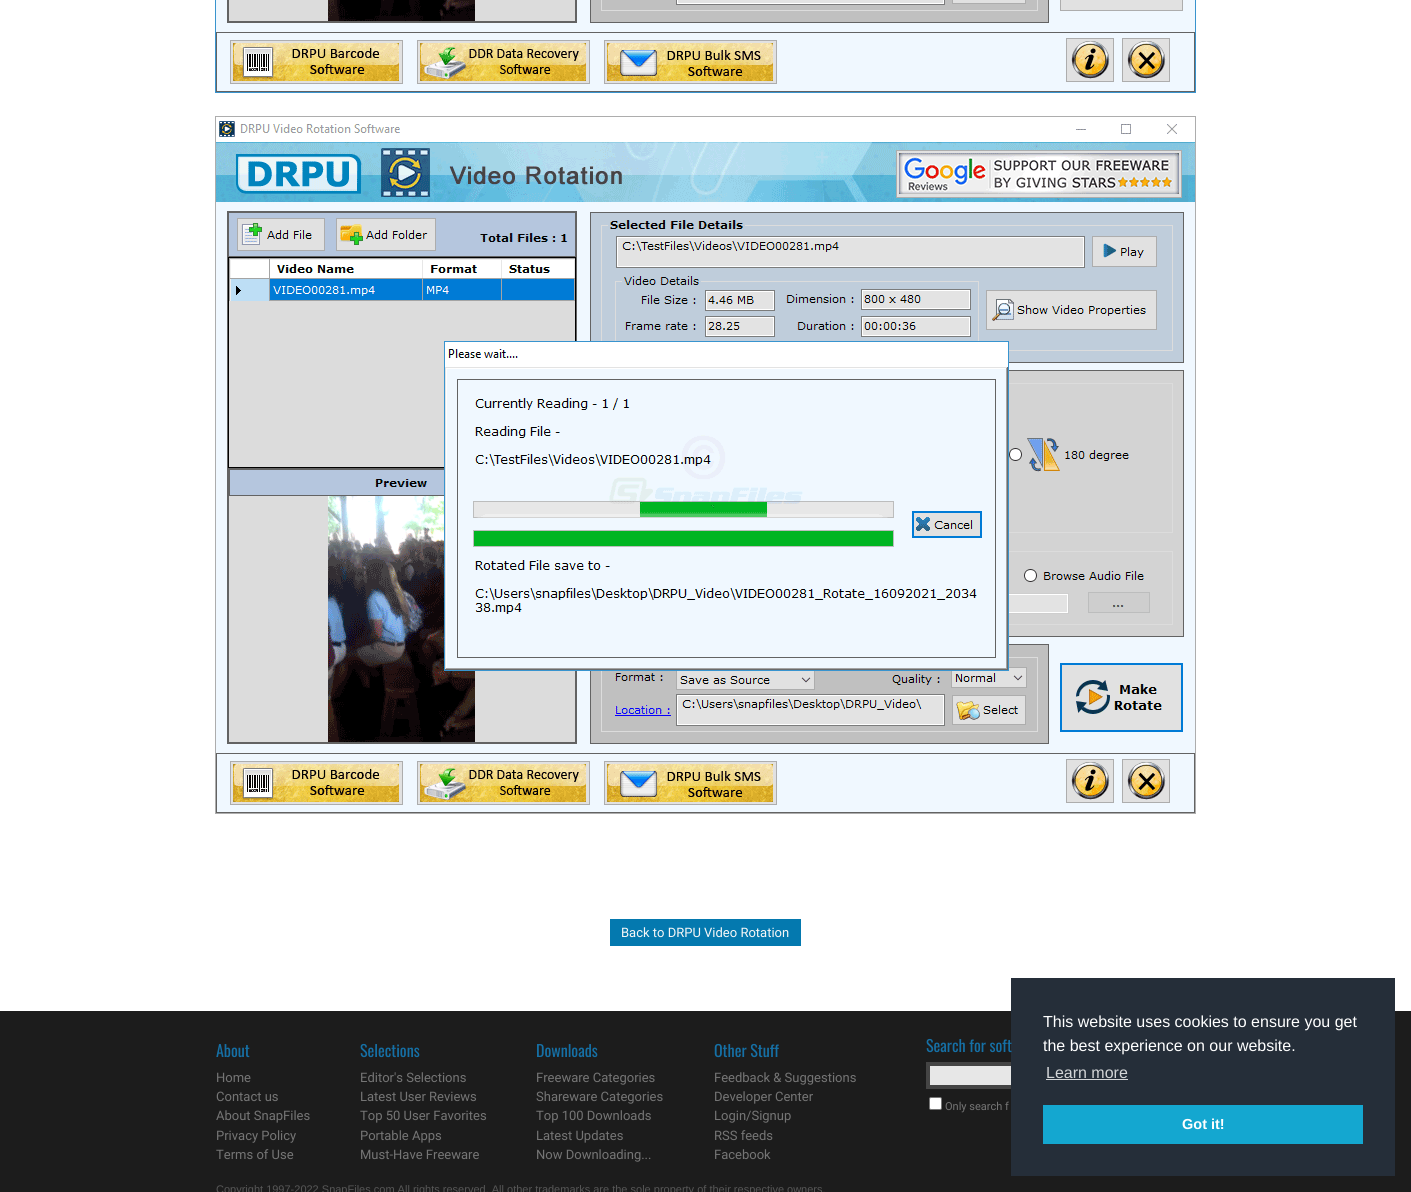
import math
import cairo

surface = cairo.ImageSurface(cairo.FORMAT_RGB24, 1411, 1192)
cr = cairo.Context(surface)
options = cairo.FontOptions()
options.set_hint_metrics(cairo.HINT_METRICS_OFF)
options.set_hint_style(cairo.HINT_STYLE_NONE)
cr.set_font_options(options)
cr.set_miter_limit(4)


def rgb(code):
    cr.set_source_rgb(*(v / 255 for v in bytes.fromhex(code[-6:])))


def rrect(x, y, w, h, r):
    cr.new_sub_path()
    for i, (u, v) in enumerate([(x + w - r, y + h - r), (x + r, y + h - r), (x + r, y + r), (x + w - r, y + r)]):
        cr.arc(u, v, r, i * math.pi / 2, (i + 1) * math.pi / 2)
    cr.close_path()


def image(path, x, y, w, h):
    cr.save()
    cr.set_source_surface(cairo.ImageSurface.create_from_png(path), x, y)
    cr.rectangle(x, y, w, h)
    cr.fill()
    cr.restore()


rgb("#ffffff")
cr.paint()
image("img/1.png", 215, 0, 981, 93)
image("img/2.png", 215, 116, 981, 698)
for x, y, w, h, color in [
    (610, 919, 191, 27, "#0479af"),
    (0, 1011, 1411, 181, "#1c1c1c"),
    (930, 1066, 81, 19, "#e7e7e7"),
]:
    rgb(color)
    cr.rectangle(x, y, w, h)
    cr.fill()
cr.rectangle(928, 1064, 238, 23)
rgb("#444444")
cr.set_line_width(4)
cr.stroke()
rgb("#ffffff")
rrect(929.5, 1097.5, 12, 12, 1.5)
cr.fill_preserve()
rgb("#767676")
cr.set_line_width(1)
cr.stroke()
for x, y, w, h, color in [
    (1011, 978, 384, 198, "#252e39"),
    (1046, 1079, 82, 1, "#d3d5d7"),
    (1043, 1105, 320, 39, "#14a7d0"),
]:
    rgb(color)
    cr.rectangle(x, y, w, h)
    cr.fill()
cr.select_font_face("Roboto")
cr.set_font_size(13)
rgb("#f7f7f7")
cr.move_to(621, 937)
cr.show_text("Back to DRPU Video Rotation")
cr.select_font_face("Oswald")
cr.set_font_size(16)
rgb("#1570a6")
cr.move_to(216, 1057)
cr.show_text("About")
cr.select_font_face("Roboto")
cr.set_font_size(13)
rgb("#757575")
for x, y, s in [
    (216, 1082, "Home"),
    (216, 1101, "Contact us"),
    (216, 1120, "About SnapFiles"),
    (216, 1140, "Privacy Policy"),
    (216, 1159, "Terms of Use"),
]:
    cr.move_to(x, y)
    cr.show_text(s)
cr.select_font_face("Oswald")
cr.set_font_size(16)
rgb("#1570a6")
cr.move_to(360, 1057)
cr.show_text("Selections")
cr.select_font_face("Roboto")
cr.set_font_size(13)
rgb("#757575")
for x, y, s in [
    (360, 1082, "Editor's Selections"),
    (360, 1101, "Latest User Reviews"),
    (360, 1120, "Top 50 User Favorites"),
    (360, 1140, "Portable Apps"),
    (360, 1159, "Must-Have Freeware"),
]:
    cr.move_to(x, y)
    cr.show_text(s)
cr.select_font_face("Oswald")
cr.set_font_size(16)
rgb("#1570a6")
cr.move_to(536, 1057)
cr.show_text("Downloads")
cr.select_font_face("Roboto")
cr.set_font_size(13)
rgb("#757575")
for x, y, s in [
    (536, 1082, "Freeware Categories"),
    (536, 1101, "Shareware Categories"),
    (536, 1120, "Top 100 Downloads"),
    (536, 1140, "Latest Updates"),
    (536, 1159, "Now Downloading..."),
]:
    cr.move_to(x, y)
    cr.show_text(s)
cr.select_font_face("Oswald")
cr.set_font_size(16)
rgb("#1570a6")
cr.move_to(714, 1057)
cr.show_text("Other Stuff")
cr.select_font_face("Roboto")
cr.set_font_size(13)
rgb("#757575")
for x, y, s in [
    (714, 1082, "Feedback & Suggestions"),
    (714, 1101, "Developer Center"),
    (714, 1120, "Login/Signup"),
    (714, 1140, "RSS feeds"),
    (714, 1159, "Facebook"),
]:
    cr.move_to(x, y)
    cr.show_text(s)
cr.select_font_face("Oswald")
cr.set_font_size(16)
rgb("#1570a6")
cr.move_to(926, 1052)
cr.show_text("Search for soft")
cr.select_font_face("Roboto")
cr.set_font_size(11)
rgb("#757575")
cr.move_to(945, 1110)
cr.show_text("Only search f")
cr.select_font_face("Liberation Sans")
rgb("#575757")
cr.move_to(216, 1193)
cr.show_text("Copyright 1997-2022 SnapFiles.com All rights reserved. All other trademarks are the sole property of their respective owners.")
cr.set_font_size(16)
rgb("#ffffff")
cr.move_to(1043, 1027)
cr.show_text("This website uses cookies to ensure you get")
cr.move_to(1043, 1051)
cr.show_text("the best experience on our website.")
rgb("#d3d5d7")
cr.move_to(1046, 1078)
cr.show_text("Learn more")
cr.select_font_face("Liberation Sans", cairo.FONT_SLANT_NORMAL, cairo.FONT_WEIGHT_BOLD)
cr.set_font_size(14.5)
rgb("#ffffff")
cr.move_to(1182, 1129)
cr.show_text("Got it!")
surface.write_to_png("page.png")
